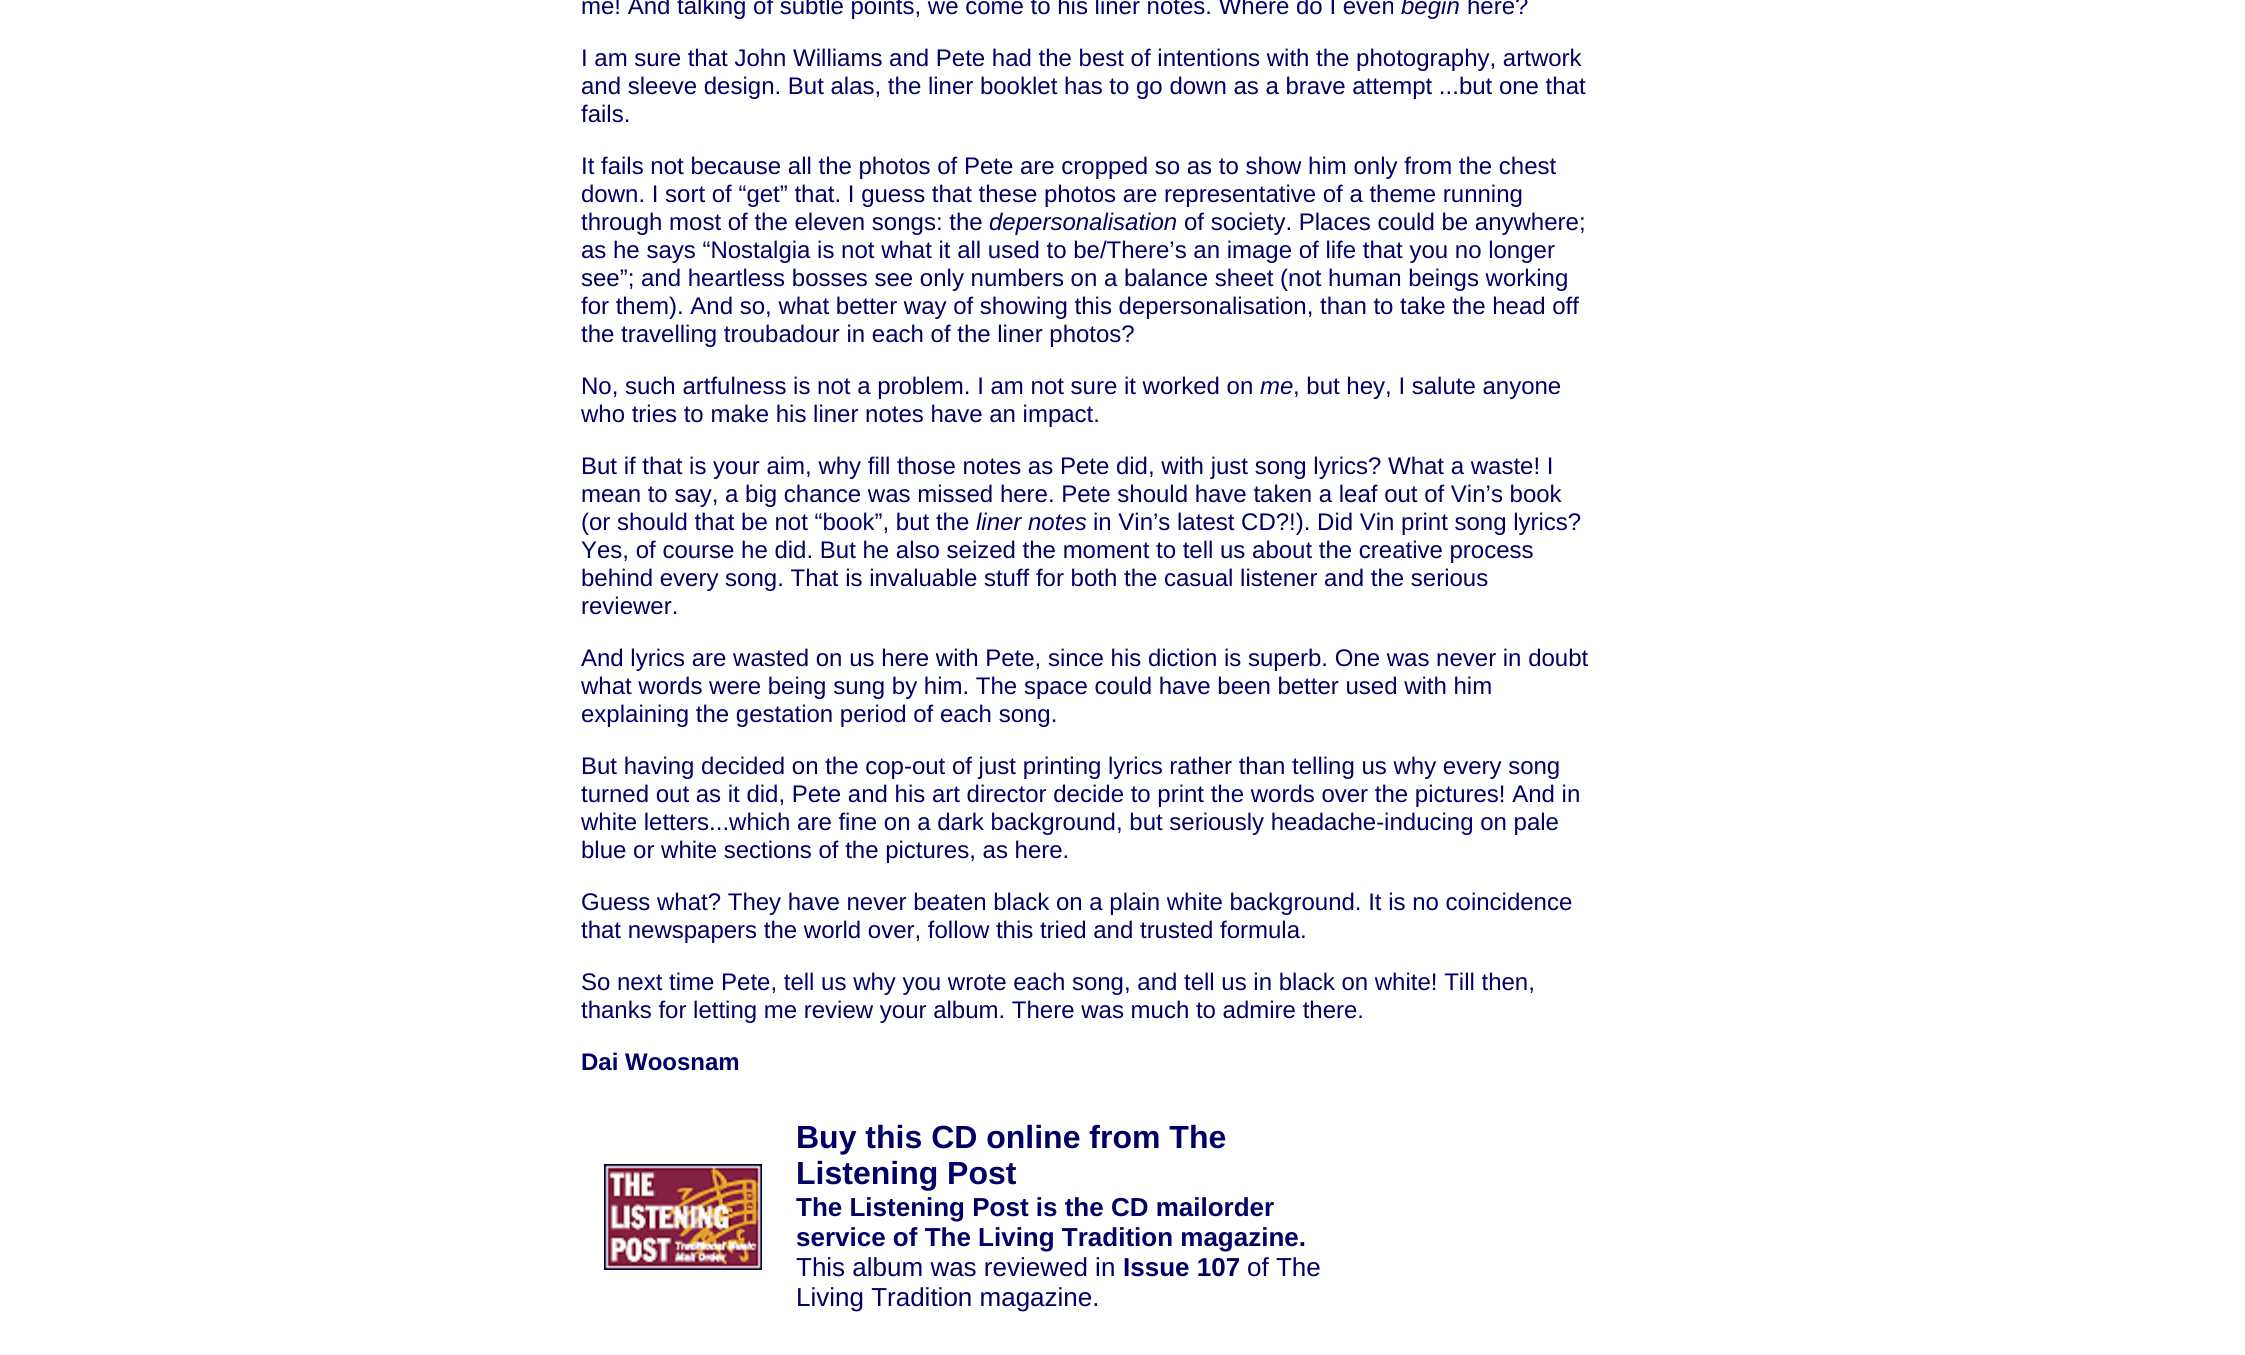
import math
import cairo

surface = cairo.ImageSurface(cairo.FORMAT_RGB24, 2245, 1355)
cr = cairo.Context(surface)
options = cairo.FontOptions()
options.set_hint_metrics(cairo.HINT_METRICS_OFF)
options.set_hint_style(cairo.HINT_STYLE_NONE)
cr.set_font_options(options)
cr.set_miter_limit(4)


def rgb(code):
    cr.set_source_rgb(*(v / 255 for v in bytes.fromhex(code[-6:])))


def image(path, x, y, w, h):
    cr.save()
    cr.set_source_surface(cairo.ImageSurface.create_from_png(path), x, y)
    cr.rectangle(x, y, w, h)
    cr.fill()
    cr.restore()


rgb("#ffffff")
cr.paint()
image("img/1.png", 604, 1164, 158, 106)
cr.select_font_face("Liberation Sans")
cr.set_font_size(24)
rgb("#000066")
cr.move_to(581, 14)
cr.show_text("me! And talking of subtle points, we come to his liner notes. Where do I even")
cr.select_font_face("Liberation Sans", cairo.FONT_SLANT_ITALIC)
cr.move_to(1401, 14)
cr.show_text("begin")
cr.select_font_face("Liberation Sans")
for x, y, s in [
    (1467, 14, "here?"),
    (581, 66, "I am sure that John Williams and Pete had the best of intentions with the photography, artwork"),
    (581, 94, "and sleeve design. But alas, the liner booklet has to go down as a brave attempt ...but one that"),
    (581, 122, "fails."),
    (581, 174, "It fails not because all the photos of Pete are cropped so as to show him only from the chest"),
    (581, 202, "down. I sort of “get” that. I guess that these photos are representative of a theme running"),
    (581, 230, "through most of the eleven songs: the"),
]:
    cr.move_to(x, y)
    cr.show_text(s)
cr.select_font_face("Liberation Sans", cairo.FONT_SLANT_ITALIC)
cr.move_to(989, 230)
cr.show_text("depersonalisation")
cr.select_font_face("Liberation Sans")
for x, y, s in [
    (1184, 230, "of society. Places could be anywhere;"),
    (581, 258, "as he says “Nostalgia is not what it all used to be/There’s an image of life that you no longer"),
    (581, 286, "see”; and heartless bosses see only numbers on a balance sheet (not human beings working"),
    (581, 314, "for them). And so, what better way of showing this depersonalisation, than to take the head off"),
    (581, 342, "the travelling troubadour in each of the liner photos?"),
    (581, 394, "No, such artfulness is not a problem. I am not sure it worked on"),
]:
    cr.move_to(x, y)
    cr.show_text(s)
cr.select_font_face("Liberation Sans", cairo.FONT_SLANT_ITALIC)
cr.move_to(1260, 394)
cr.show_text("me")
cr.select_font_face("Liberation Sans")
for x, y, s in [
    (1293, 394, ", but hey, I salute anyone"),
    (581, 422, "who tries to make his liner notes have an impact."),
    (581, 474, "But if that is your aim, why fill those notes as Pete did, with just song lyrics? What a waste! I"),
    (581, 502, "mean to say, a big chance was missed here. Pete should have taken a leaf out of Vin’s book"),
    (581, 530, "(or should that be not “book”, but the"),
]:
    cr.move_to(x, y)
    cr.show_text(s)
cr.select_font_face("Liberation Sans", cairo.FONT_SLANT_ITALIC)
cr.move_to(976, 530)
cr.show_text("liner notes")
cr.select_font_face("Liberation Sans")
for x, y, s in [
    (1093, 530, "in Vin’s latest CD?!). Did Vin print song lyrics?"),
    (581, 558, "Yes, of course he did. But he also seized the moment to tell us about the creative process"),
    (581, 586, "behind every song. That is invaluable stuff for both the casual listener and the serious"),
    (581, 614, "reviewer."),
    (581, 666, "And lyrics are wasted on us here with Pete, since his diction is superb. One was never in doubt"),
    (581, 694, "what words were being sung by him. The space could have been better used with him"),
    (581, 722, "explaining the gestation period of each song."),
    (581, 774, "But having decided on the cop-out of just printing lyrics rather than telling us why every song"),
    (581, 802, "turned out as it did, Pete and his art director decide to print the words over the pictures! And in"),
    (581, 830, "white letters...which are fine on a dark background, but seriously headache-inducing on pale"),
    (581, 858, "blue or white sections of the pictures, as here."),
    (581, 910, "Guess what? They have never beaten black on a plain white background. It is no coincidence"),
    (581, 938, "that newspapers the world over, follow this tried and trusted formula."),
    (581, 990, "So next time Pete, tell us why you wrote each song, and tell us in black on white! Till then,"),
    (581, 1018, "thanks for letting me review your album. There was much to admire there."),
]:
    cr.move_to(x, y)
    cr.show_text(s)
cr.select_font_face("Liberation Sans", cairo.FONT_SLANT_NORMAL, cairo.FONT_WEIGHT_BOLD)
cr.move_to(581, 1070)
cr.show_text("Dai Woosnam")
cr.set_font_size(32)
cr.move_to(796, 1148)
cr.show_text("Buy this CD online from The")
cr.move_to(796, 1184)
cr.show_text("Listening Post")
cr.set_font_size(26)
cr.move_to(796, 1216)
cr.show_text("The Listening Post is the CD mailorder")
cr.move_to(796, 1246)
cr.show_text("service of The Living Tradition magazine.")
cr.select_font_face("Liberation Sans")
cr.move_to(796, 1276)
cr.show_text("This album was reviewed in")
cr.select_font_face("Liberation Sans", cairo.FONT_SLANT_NORMAL, cairo.FONT_WEIGHT_BOLD)
cr.move_to(1123, 1276)
cr.show_text("Issue 107")
cr.select_font_face("Liberation Sans")
cr.move_to(1247, 1276)
cr.show_text("of The")
cr.move_to(796, 1306)
cr.show_text("Living Tradition magazine.")
surface.write_to_png("page.png")
